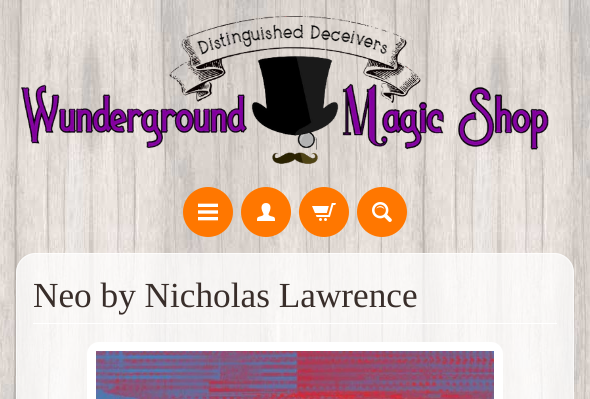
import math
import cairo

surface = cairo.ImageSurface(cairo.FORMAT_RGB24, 590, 399)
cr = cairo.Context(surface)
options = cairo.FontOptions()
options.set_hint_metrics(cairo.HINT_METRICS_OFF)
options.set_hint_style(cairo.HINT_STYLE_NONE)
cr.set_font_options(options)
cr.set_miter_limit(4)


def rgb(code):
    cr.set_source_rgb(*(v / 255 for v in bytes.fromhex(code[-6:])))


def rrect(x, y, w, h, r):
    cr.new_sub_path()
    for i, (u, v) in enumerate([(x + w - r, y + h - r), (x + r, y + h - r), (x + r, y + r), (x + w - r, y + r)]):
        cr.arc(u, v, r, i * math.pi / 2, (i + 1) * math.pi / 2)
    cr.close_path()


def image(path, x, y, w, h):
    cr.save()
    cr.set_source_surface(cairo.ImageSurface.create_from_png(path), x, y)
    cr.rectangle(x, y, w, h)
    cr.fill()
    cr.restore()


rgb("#ffffff")
cr.paint()
image("img/1.png", 0, 0, 590, 399)
image("img/2.png", 21, 16, 528, 148)
rgb("#ff7700")
cr.arc(208, 212, 23.5, 0, 2 * math.pi)
cr.fill_preserve()
cr.set_line_width(3)
cr.stroke()
image("img/3.png", 198, 203, 20, 18)
cr.arc(266, 212, 23.5, 0, 2 * math.pi)
cr.fill_preserve()
cr.stroke()
image("img/4.png", 257, 203, 18, 18)
cr.arc(324, 212, 23.5, 0, 2 * math.pi)
cr.fill_preserve()
cr.stroke()
image("img/5.png", 312, 203, 24, 18)
cr.arc(382, 212, 23.5, 0, 2 * math.pi)
cr.fill_preserve()
cr.stroke()
image("img/6.png", 372, 202, 20, 20)
cr.set_source_rgba(1, 1, 1, 0.75)
rrect(16, 253, 558, 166, 20)
cr.fill()
rrect(16.5, 253.5, 557, 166, 19.5)
cr.set_source_rgba(1, 1, 1, 0.7)
cr.set_line_width(1)
cr.stroke()
rgb("#ffffff")
cr.rectangle(33, 323, 524, 1)
cr.fill()
rrect(87, 342, 416, 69, 12)
cr.fill()
image("img/7.png", 96, 351, 398, 48)
cr.select_font_face("Liberation Serif")
cr.set_font_size(35.25)
rgb("#392e2a")
cr.move_to(33, 307)
cr.show_text("Neo by Nicholas Lawrence")
surface.write_to_png("page.png")
